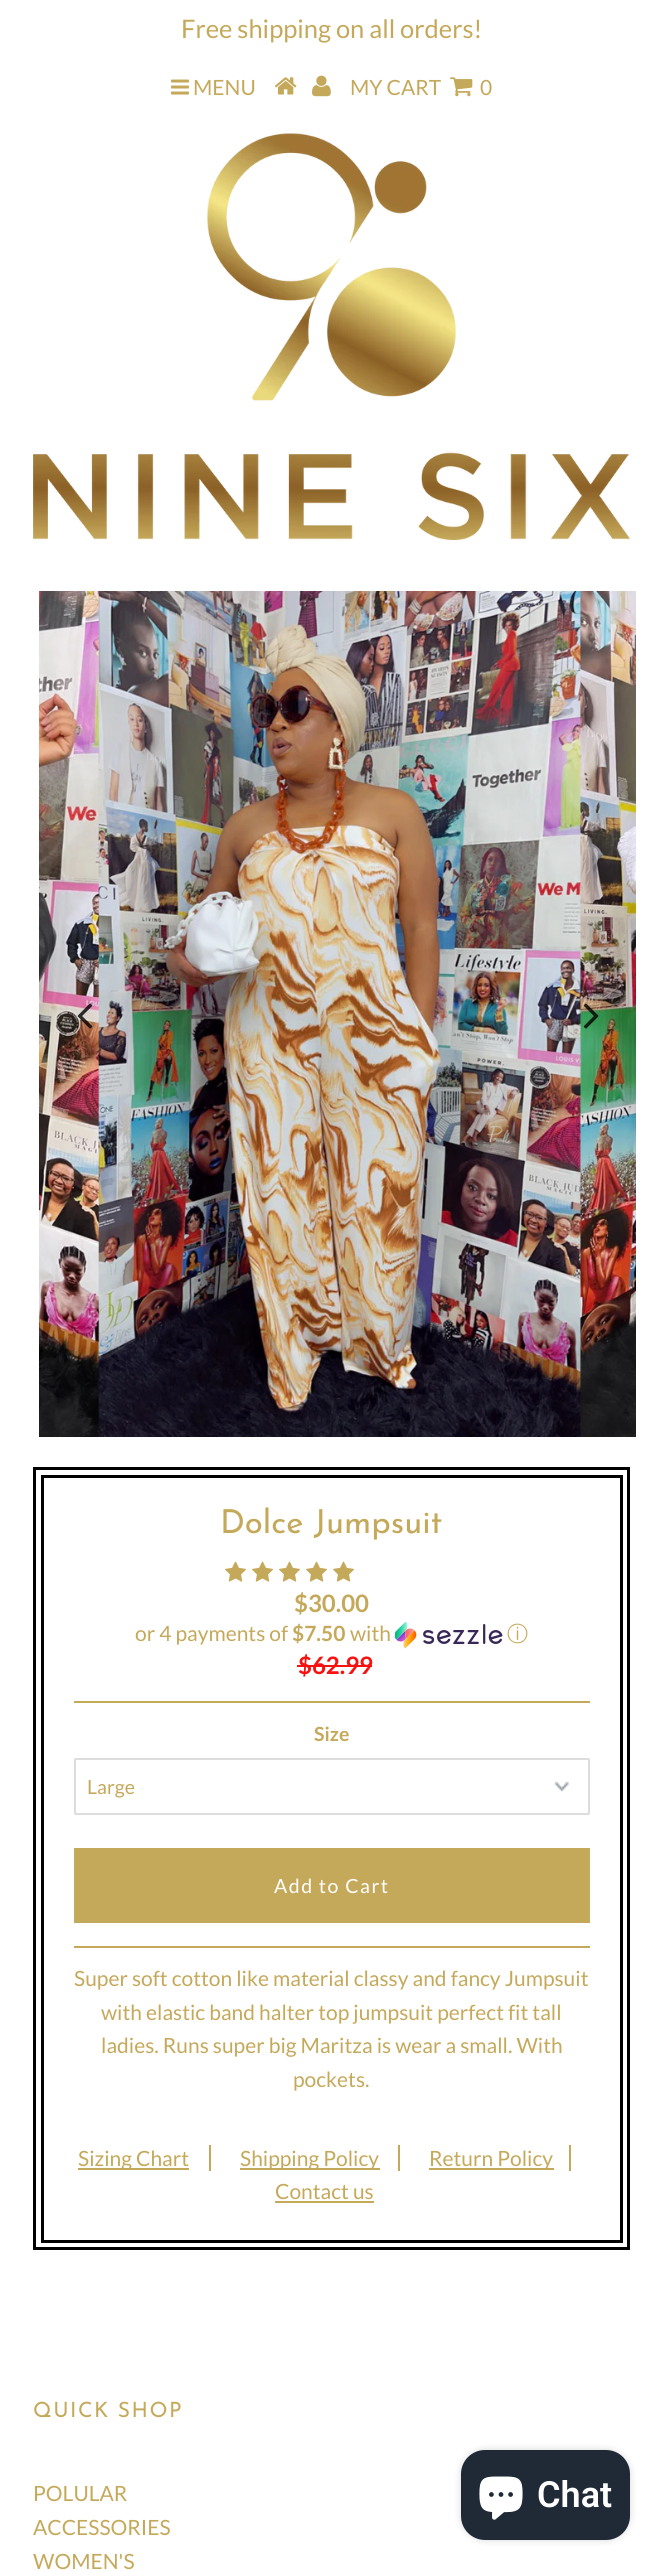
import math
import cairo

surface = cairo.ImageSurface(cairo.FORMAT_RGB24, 663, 2571)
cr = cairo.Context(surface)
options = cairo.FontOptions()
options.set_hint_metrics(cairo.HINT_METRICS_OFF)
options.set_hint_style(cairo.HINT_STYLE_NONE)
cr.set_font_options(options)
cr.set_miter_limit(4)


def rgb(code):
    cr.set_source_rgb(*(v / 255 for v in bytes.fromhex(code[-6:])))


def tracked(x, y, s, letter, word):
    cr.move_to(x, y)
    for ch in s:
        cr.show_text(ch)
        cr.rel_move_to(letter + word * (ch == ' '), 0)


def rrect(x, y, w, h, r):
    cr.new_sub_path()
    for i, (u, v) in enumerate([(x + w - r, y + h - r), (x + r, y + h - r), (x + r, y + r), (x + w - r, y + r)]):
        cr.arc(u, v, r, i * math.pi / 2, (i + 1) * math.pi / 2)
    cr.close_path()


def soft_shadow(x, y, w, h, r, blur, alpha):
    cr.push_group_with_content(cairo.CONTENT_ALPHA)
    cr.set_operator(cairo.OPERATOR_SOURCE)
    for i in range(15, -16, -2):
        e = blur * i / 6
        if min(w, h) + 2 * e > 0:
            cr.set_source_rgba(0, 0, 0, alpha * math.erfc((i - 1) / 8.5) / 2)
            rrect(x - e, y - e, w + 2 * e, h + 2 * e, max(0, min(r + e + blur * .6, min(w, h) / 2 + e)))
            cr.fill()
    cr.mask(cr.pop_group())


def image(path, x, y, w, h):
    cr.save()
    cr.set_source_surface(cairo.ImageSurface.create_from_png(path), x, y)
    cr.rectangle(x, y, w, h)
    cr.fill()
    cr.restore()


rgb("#ffffff")
cr.paint()
image("img/1.png", 171, 79, 18, 16)
image("img/2.png", 274, 77, 23, 18)
image("img/3.png", 312, 75, 19, 22)
image("img/4.png", 450, 77, 23, 20)
image("img/5.png", 33, 133, 597, 407)
image("img/6.png", 39, 591, 597, 846)
image("img/7.png", 77, 1003, 16, 26)
image("img/8.png", 583, 1003, 16, 26)
cr.rectangle(34.5, 1468.5, 594, 780)
rgb("#000000")
cr.set_line_width(3)
cr.stroke()
cr.rectangle(42.5, 1476.5, 579, 765)
cr.stroke()
image("img/9.png", 225, 1561, 21, 21)
image("img/9.png", 252, 1561, 21, 21)
image("img/9.png", 279, 1561, 21, 21)
image("img/9.png", 306, 1561, 21, 21)
image("img/9.png", 333, 1561, 21, 21)
rgb("#c5a95b")
cr.rectangle(74, 1946, 516, 2)
cr.fill()
cr.rectangle(74, 1701, 516, 2)
cr.fill()
image("img/10.png", 395, 1622, 108, 27)
rgb("#f71111")
cr.rectangle(297, 1665, 75, 2)
cr.fill()
image("img/11.png", 554, 1781, 15, 11)
rrect(75, 1759, 514, 55, 0.5)
rgb("#dddddd")
cr.set_line_width(2)
cr.stroke()
for x, y, w, h, color in [
    (74, 1848, 516, 75, "#c5a95b"),
    (209, 2145, 2, 26, "#c5a95b"),
    (78, 2168, 111, 2, "#c5a95b"),
    (398, 2145, 2, 26, "#c5a95b"),
    (240, 2168, 140, 2, "#c5a95b"),
    (569, 2145, 2, 26, "#c5a95b"),
    (429, 2168, 125, 2, "#c5a95b"),
    (275, 2201, 99, 2, "#c5a95b"),
]:
    rgb(color)
    cr.rectangle(x, y, w, h)
    cr.fill()
rgb("#000000")
soft_shadow(461, 2450, 169, 90, 24, 4, 0.15)
rgb("#202a36")
rrect(461, 2450, 169, 90, 24)
cr.fill()
image("img/12.png", 479, 2476, 44, 44)
cr.select_font_face("Lato")
cr.set_font_size(25.5)
rgb("#c5a95b")
cr.move_to(181, 38)
cr.show_text("Free shipping on all orders!")
cr.set_font_size(21)
for x, y, s in [
    (193, 95, "MENU"),
    (350, 95, "MY CART"),
    (480, 95, "0"),
]:
    cr.move_to(x, y)
    cr.show_text(s)
cr.select_font_face("Josefin Sans")
cr.set_font_size(33)
cr.move_to(220, 1533)
cr.show_text("Dolce Jumpsuit")
cr.select_font_face("Lato", cairo.FONT_SLANT_NORMAL, cairo.FONT_WEIGHT_BOLD)
cr.set_font_size(24)
cr.move_to(294, 1612)
cr.show_text("$30.00")
cr.select_font_face("Lato")
cr.set_font_size(21)
cr.move_to(135, 1641)
cr.show_text("or 4 payments of")
cr.select_font_face("Lato", cairo.FONT_SLANT_NORMAL, cairo.FONT_WEIGHT_BOLD)
cr.move_to(292, 1641)
cr.show_text("$7.50")
cr.select_font_face("Lato")
cr.move_to(350, 1641)
cr.show_text("with")
cr.select_font_face("WenQuanYi Zen Hei Medium")
cr.move_to(507, 1641)
cr.show_text("ⓘ")
cr.select_font_face("Lato", cairo.FONT_SLANT_NORMAL, cairo.FONT_WEIGHT_BOLD)
cr.set_font_size(24)
rgb("#f71111")
cr.move_to(298, 1674)
cr.show_text("$62.99")
cr.set_font_size(19.5)
rgb("#c5a95b")
cr.move_to(314, 1741)
cr.show_text("Size")
cr.select_font_face("Lato")
cr.move_to(87, 1794)
cr.show_text("Large")
rgb("#ffffff")
tracked(274, 1893, "Add to Cart", 1.5, 0)
cr.set_font_size(21)
rgb("#c5a95b")
for x, y, s in [
    (74, 1986, "Super soft cotton like material classy and fancy Jumpsuit"),
    (101, 2020, "with elastic band halter top jumpsuit perfect fit tall"),
    (101, 2053, "ladies. Runs super big Maritza is wear a small. With"),
    (293, 2087, "pockets."),
    (78, 2166, "Sizing Chart"),
    (240, 2166, "Shipping Policy"),
    (429, 2166, "Return Policy"),
    (275, 2199, "Contact us"),
]:
    cr.move_to(x, y)
    cr.show_text(s)
cr.select_font_face("Josefin Sans")
tracked(33, 2417, "QUICK SHOP", 1.5, 0)
cr.select_font_face("Lato")
for x, y, s in [
    (33, 2501, "POLULAR"),
    (33, 2535, "ACCESSORIES"),
    (33, 2569, "WOMEN'S"),
]:
    cr.move_to(x, y)
    cr.show_text(s)
cr.select_font_face("Roboto SemiBold")
cr.set_font_size(36)
rgb("#ffffff")
cr.move_to(537, 2507)
cr.show_text("Chat")
surface.write_to_png("page.png")
